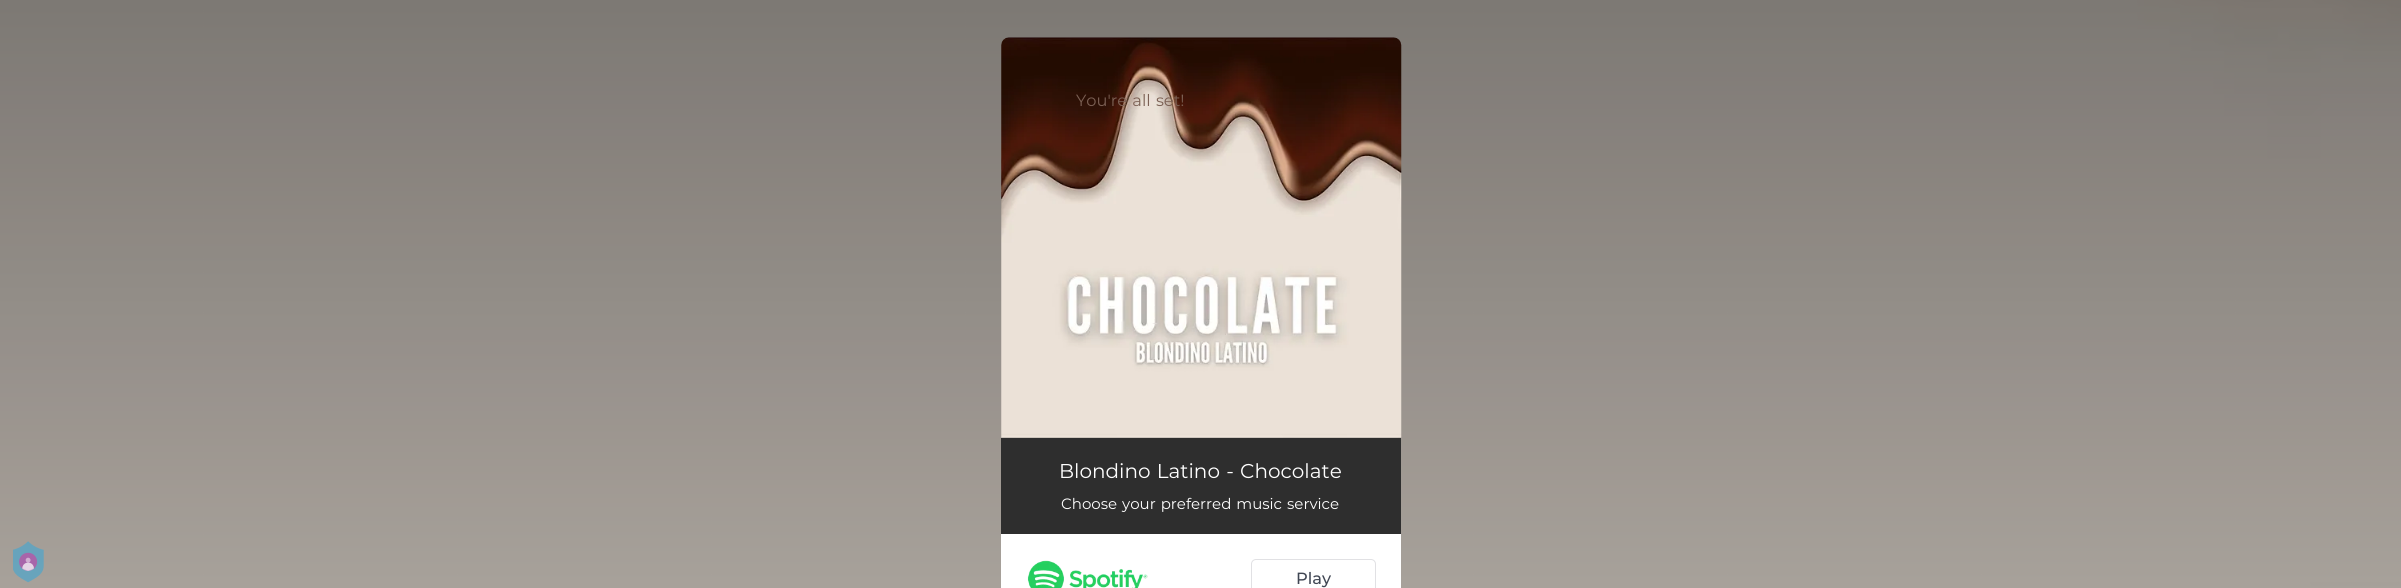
import math
import cairo

surface = cairo.ImageSurface(cairo.FORMAT_RGB24, 2401, 588)
cr = cairo.Context(surface)
options = cairo.FontOptions()
options.set_hint_metrics(cairo.HINT_METRICS_OFF)
options.set_hint_style(cairo.HINT_STYLE_NONE)
cr.set_font_options(options)
cr.set_miter_limit(4)


def rgb(code):
    cr.set_source_rgb(*(v / 255 for v in bytes.fromhex(code[-6:])))


def tracked(x, y, s, letter, word):
    cr.move_to(x, y)
    for ch in s:
        cr.show_text(ch)
        cr.rel_move_to(letter + word * (ch == ' '), 0)


def rrect(x, y, w, h, r):
    cr.new_sub_path()
    for i, (u, v) in enumerate([(x + w - r, y + h - r), (x + r, y + h - r), (x + r, y + r), (x + w - r, y + r)]):
        cr.arc(u, v, r, i * math.pi / 2, (i + 1) * math.pi / 2)
    cr.close_path()


def image(path, x, y, w, h):
    cr.save()
    cr.set_source_surface(cairo.ImageSurface.create_from_png(path), x, y)
    cr.rectangle(x, y, w, h)
    cr.fill()
    cr.restore()


rgb("#ffffff")
cr.paint()
image("img/2.png", 0, 0, 2401, 588)
image("img/1.png", 13, 541, 31, 42)
image("img/3.png", 1001, 37, 401, 401)
rgb("#2e2e2e")
cr.rectangle(1001, 438, 400, 96)
cr.fill()
rgb("#ffffff")
cr.rectangle(1001, 534, 400, 54)
cr.fill()
image("img/4.png", 1027, 560, 121, 28)
rrect(1251.5, 559.5, 124, 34, 4.5)
rgb("#e1e1e4")
cr.set_line_width(1)
cr.stroke()
cr.select_font_face("Montserrat")
cr.set_font_size(16.25)
rgb("#7b6054")
tracked(1076, 106, "You're all set!", 0, 1)
cr.set_font_size(20)
rgb("#ffffff")
tracked(1059, 478, "Blondino Latino - Chocolate", 0, 1)
cr.set_font_size(15)
tracked(1061, 509, "Choose your preferred music service", 0, 1)
cr.select_font_face("Montserrat Medium")
cr.set_font_size(16.25)
rgb("#414754")
cr.move_to(1296, 584)
cr.show_text("Play")
surface.write_to_png("page.png")
